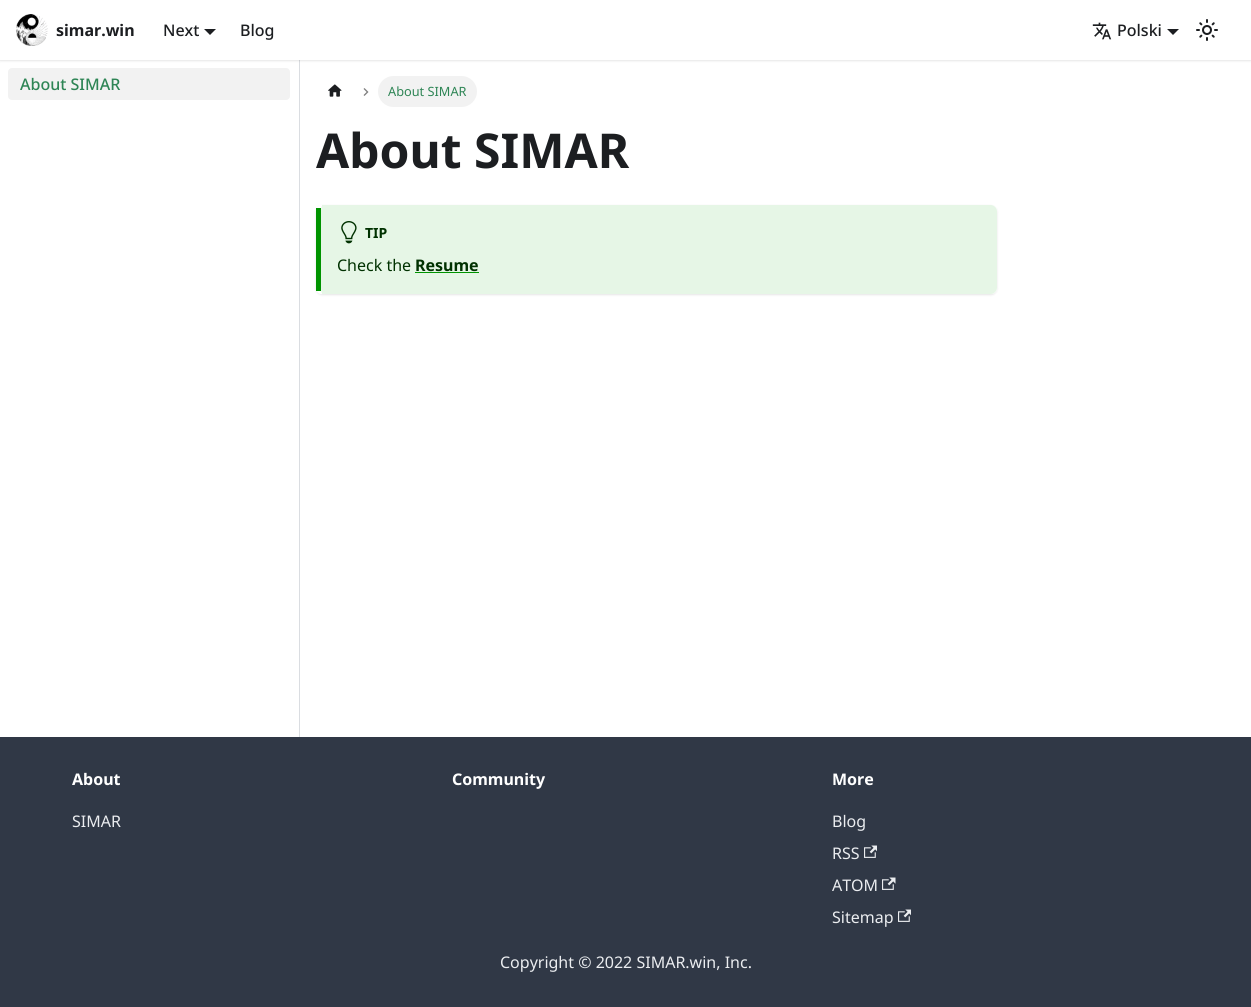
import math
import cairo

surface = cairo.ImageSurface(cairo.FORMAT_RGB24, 1251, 1007)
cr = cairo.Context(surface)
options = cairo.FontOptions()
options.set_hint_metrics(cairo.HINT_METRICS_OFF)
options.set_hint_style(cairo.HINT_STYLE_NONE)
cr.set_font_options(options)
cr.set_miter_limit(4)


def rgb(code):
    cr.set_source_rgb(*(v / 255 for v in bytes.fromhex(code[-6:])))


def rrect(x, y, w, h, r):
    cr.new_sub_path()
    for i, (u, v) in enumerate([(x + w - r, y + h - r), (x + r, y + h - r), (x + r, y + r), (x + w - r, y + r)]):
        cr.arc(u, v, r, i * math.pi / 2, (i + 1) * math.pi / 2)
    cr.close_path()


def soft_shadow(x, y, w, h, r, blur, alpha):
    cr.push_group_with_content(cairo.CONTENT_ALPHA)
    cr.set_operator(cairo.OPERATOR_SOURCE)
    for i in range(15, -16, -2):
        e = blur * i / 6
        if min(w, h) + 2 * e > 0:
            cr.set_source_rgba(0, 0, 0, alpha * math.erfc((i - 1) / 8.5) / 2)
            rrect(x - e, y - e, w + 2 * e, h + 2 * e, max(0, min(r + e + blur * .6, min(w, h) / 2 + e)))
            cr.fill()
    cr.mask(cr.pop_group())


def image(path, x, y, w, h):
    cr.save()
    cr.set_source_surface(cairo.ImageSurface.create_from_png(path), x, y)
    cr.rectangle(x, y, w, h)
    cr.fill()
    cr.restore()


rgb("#ffffff")
cr.paint()
rgb("#dadde1")
cr.rectangle(299, 60, 1, 677)
cr.fill()
rgb("#000000")
soft_shadow(0, 1, 1251, 60, 0, 1, 0.1)
rgb("#ffffff")
cr.rectangle(0, 0, 1251, 60)
cr.fill()
image("img/1.png", 16, 14, 32, 32)
rgb("#1c1e21")
cr.new_path()
cr.move_to(204, 29)
cr.line_to(216, 29)
cr.line_to(210, 35)
cr.close_path()
cr.fill()
image("img/2.png", 1092, 22, 20, 18)
cr.new_path()
cr.move_to(1167, 29)
cr.line_to(1179, 29)
cr.line_to(1173, 35)
cr.close_path()
cr.fill()
image("img/3.png", 1196, 19, 22, 22)
rgb("#f2f2f2")
rrect(8, 68, 282, 32, 4)
cr.fill()
image("img/4.png", 328, 84, 14, 13)
image("img/5.png", 363, 88, 6, 8)
rrect(378, 76, 99, 31, 15.5)
cr.fill()
cr.save()
cr.set_fill_rule(cairo.FILL_RULE_EVEN_ODD)
cr.new_path()
cr.move_to(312, 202)
cr.line_to(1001, 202)
cr.line_to(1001, 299)
cr.line_to(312, 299)
cr.close_path()
cr.move_to(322, 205)
cr.line_to(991, 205)
cr.curve_to(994.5, 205, 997, 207.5, 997, 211)
cr.line_to(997, 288)
cr.curve_to(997, 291.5, 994.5, 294, 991, 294)
cr.line_to(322, 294)
cr.curve_to(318.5, 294, 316, 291.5, 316, 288)
cr.line_to(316, 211)
cr.curve_to(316, 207.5, 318.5, 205, 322, 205)
cr.close_path()
cr.clip()
rgb("#000000")
soft_shadow(316, 206, 681, 89, 6, 1, 0.1)
cr.restore()
rgb("#e6f6e6")
cr.new_path()
cr.move_to(322, 205)
cr.line_to(991, 205)
cr.curve_to(994, 205, 997, 208, 997, 211)
cr.line_to(997, 288)
cr.curve_to(997, 291, 994, 294, 991, 294)
cr.line_to(322, 294)
cr.curve_to(322, 294, 321, 291, 321, 288)
cr.line_to(321, 211)
cr.curve_to(321, 208, 322, 205, 322, 205)
cr.close_path()
cr.fill()
rgb("#009400")
cr.rectangle(316, 208, 5, 83)
cr.fill()
image("img/6.png", 341, 221, 16, 23)
cr.rectangle(415, 272, 64, 1)
cr.fill()
rgb("#303846")
cr.rectangle(0, 737, 1251, 270)
cr.fill()
image("img/7.png", 864, 845, 13, 13)
image("img/8.png", 882, 877, 14, 13)
image("img/7.png", 898, 909, 13, 13)
cr.select_font_face("Noto Sans", cairo.FONT_SLANT_NORMAL, cairo.FONT_WEIGHT_BOLD)
cr.set_font_size(16)
rgb("#1c1e21")
cr.move_to(56, 36)
cr.show_text("simar.win")
cr.select_font_face("Noto Sans Medium")
for x, y, s in [
    (163, 36, "Next"),
    (240, 36, "Blog"),
    (1117, 36, "Polski"),
]:
    cr.move_to(x, y)
    cr.show_text(s)
rgb("#2e8555")
cr.move_to(20, 90)
cr.show_text("About SIMAR")
cr.select_font_face("Noto Sans")
cr.set_font_size(12.75)
cr.move_to(388, 96)
cr.show_text("About SIMAR")
cr.select_font_face("Noto Sans", cairo.FONT_SLANT_NORMAL, cairo.FONT_WEIGHT_BOLD)
cr.set_font_size(48)
rgb("#1c1e21")
cr.move_to(316, 168)
cr.show_text("About SIMAR")
cr.set_font_size(14)
rgb("#003100")
cr.move_to(365, 238)
cr.show_text("TIP")
cr.select_font_face("Noto Sans")
cr.set_font_size(16)
cr.move_to(337, 271)
cr.show_text("Check the")
cr.select_font_face("Noto Sans", cairo.FONT_SLANT_NORMAL, cairo.FONT_WEIGHT_BOLD)
cr.move_to(415, 271)
cr.show_text("Resume")
rgb("#ffffff")
cr.move_to(72, 785)
cr.show_text("About")
cr.select_font_face("Noto Sans")
rgb("#ebedf0")
cr.move_to(72, 827)
cr.show_text("SIMAR")
cr.select_font_face("Noto Sans", cairo.FONT_SLANT_NORMAL, cairo.FONT_WEIGHT_BOLD)
rgb("#ffffff")
cr.move_to(452, 785)
cr.show_text("Community")
cr.move_to(832, 785)
cr.show_text("More")
cr.select_font_face("Noto Sans")
rgb("#ebedf0")
for x, y, s in [
    (832, 827, "Blog"),
    (832, 859, "RSS"),
    (832, 891, "ATOM"),
    (832, 923, "Sitemap"),
    (500, 968, "Copyright © 2022 SIMAR.win, Inc."),
]:
    cr.move_to(x, y)
    cr.show_text(s)
surface.write_to_png("page.png")
